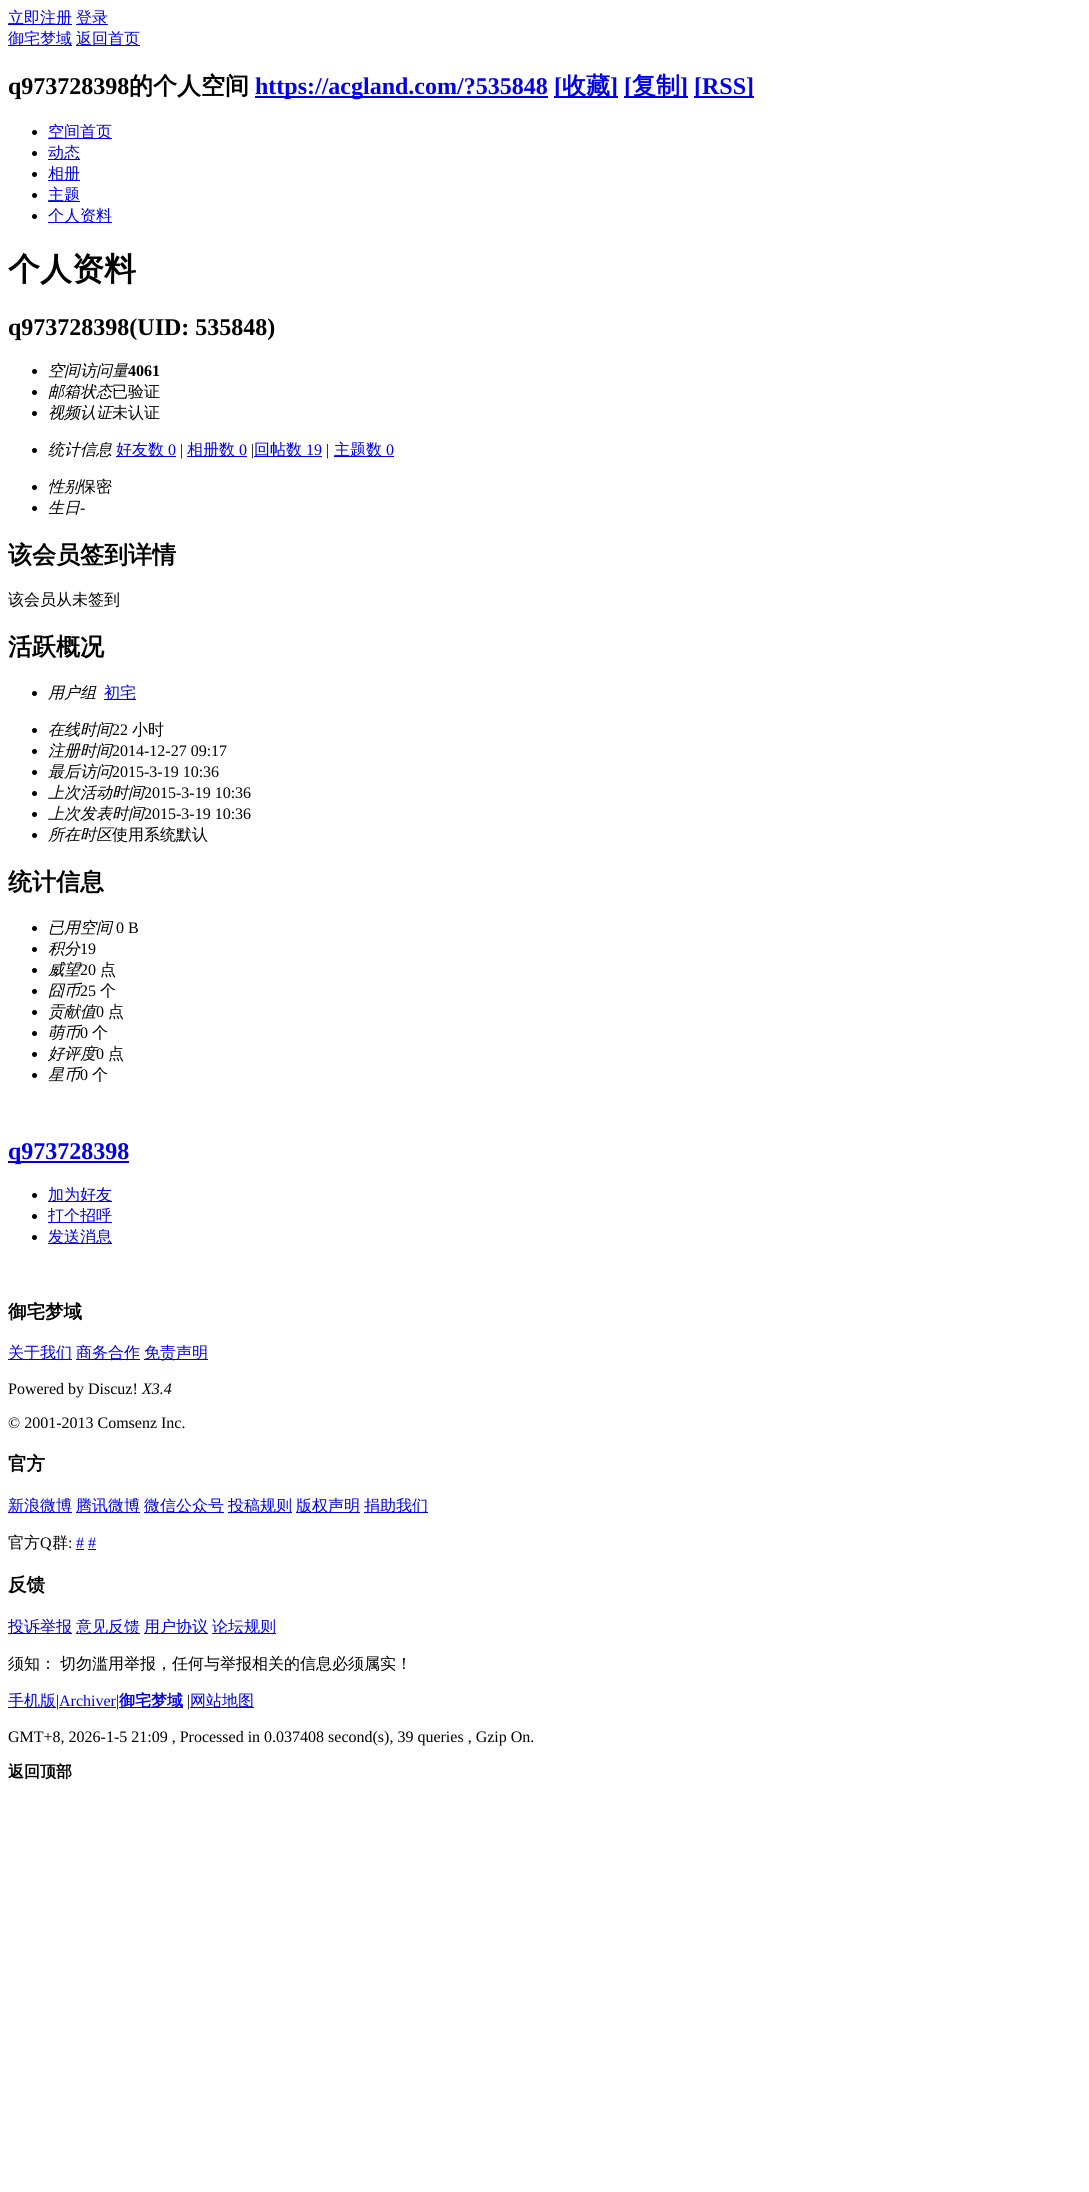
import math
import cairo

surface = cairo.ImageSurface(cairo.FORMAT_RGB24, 1089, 2192)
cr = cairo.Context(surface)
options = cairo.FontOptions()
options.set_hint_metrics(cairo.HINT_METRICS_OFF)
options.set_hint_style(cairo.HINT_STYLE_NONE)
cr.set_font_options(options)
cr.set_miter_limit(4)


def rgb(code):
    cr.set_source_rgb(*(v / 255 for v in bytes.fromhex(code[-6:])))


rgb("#ffffff")
cr.paint()
for x, y, w, h, color in [
    (8, 24, 64, 1, "#0000ee"),
    (76, 24, 32, 1, "#0000ee"),
    (8, 45, 64, 1, "#0000ee"),
    (76, 45, 64, 1, "#0000ee"),
    (255, 96, 293, 2, "#0000ee"),
    (554, 96, 64, 2, "#0000ee"),
    (624, 96, 64, 2, "#0000ee"),
    (694, 96, 60, 2, "#0000ee"),
]:
    rgb(color)
    cr.rectangle(x, y, w, h)
    cr.fill()
rgb("#000000")
cr.arc(34.5, 132.5, 2.5, 0, 2 * math.pi)
cr.fill()
rgb("#0000ee")
cr.rectangle(48, 138, 64, 1)
cr.fill()
rgb("#000000")
cr.arc(34.5, 153.5, 2.5, 0, 2 * math.pi)
cr.fill()
rgb("#0000ee")
cr.rectangle(48, 159, 32, 1)
cr.fill()
rgb("#000000")
cr.arc(34.5, 174.5, 2.5, 0, 2 * math.pi)
cr.fill()
rgb("#0000ee")
cr.rectangle(48, 180, 32, 1)
cr.fill()
rgb("#000000")
cr.arc(34.5, 195.5, 2.5, 0, 2 * math.pi)
cr.fill()
rgb("#0000ee")
cr.rectangle(48, 201, 32, 1)
cr.fill()
rgb("#000000")
cr.arc(34.5, 216.5, 2.5, 0, 2 * math.pi)
cr.fill()
rgb("#0000ee")
cr.rectangle(48, 222, 64, 1)
cr.fill()
rgb("#000000")
cr.arc(34.5, 371.5, 2.5, 0, 2 * math.pi)
cr.fill()
cr.arc(34.5, 392.5, 2.5, 0, 2 * math.pi)
cr.fill()
cr.arc(34.5, 413.5, 2.5, 0, 2 * math.pi)
cr.fill()
cr.arc(34.5, 450.5, 2.5, 0, 2 * math.pi)
cr.fill()
for x, y, w, h, color in [
    (116, 456, 60, 1, "#0000ee"),
    (187, 456, 60, 1, "#0000ee"),
    (254, 456, 68, 1, "#0000ee"),
    (334, 456, 60, 1, "#0000ee"),
]:
    rgb(color)
    cr.rectangle(x, y, w, h)
    cr.fill()
rgb("#000000")
cr.arc(34.5, 487.5, 2.5, 0, 2 * math.pi)
cr.fill()
cr.arc(34.5, 508.5, 2.5, 0, 2 * math.pi)
cr.fill()
cr.arc(34.5, 693.5, 2.5, 0, 2 * math.pi)
cr.fill()
rgb("#0000ee")
cr.rectangle(104, 699, 32, 1)
cr.fill()
rgb("#000000")
cr.arc(34.5, 730.5, 2.5, 0, 2 * math.pi)
cr.fill()
cr.arc(34.5, 751.5, 2.5, 0, 2 * math.pi)
cr.fill()
cr.arc(34.5, 772.5, 2.5, 0, 2 * math.pi)
cr.fill()
cr.arc(34.5, 793.5, 2.5, 0, 2 * math.pi)
cr.fill()
cr.arc(34.5, 814.5, 2.5, 0, 2 * math.pi)
cr.fill()
cr.arc(34.5, 835.5, 2.5, 0, 2 * math.pi)
cr.fill()
cr.arc(34.5, 928.5, 2.5, 0, 2 * math.pi)
cr.fill()
cr.arc(34.5, 949.5, 2.5, 0, 2 * math.pi)
cr.fill()
cr.arc(34.5, 970.5, 2.5, 0, 2 * math.pi)
cr.fill()
cr.arc(34.5, 991.5, 2.5, 0, 2 * math.pi)
cr.fill()
cr.arc(34.5, 1012.5, 2.5, 0, 2 * math.pi)
cr.fill()
cr.arc(34.5, 1033.5, 2.5, 0, 2 * math.pi)
cr.fill()
cr.arc(34.5, 1054.5, 2.5, 0, 2 * math.pi)
cr.fill()
cr.arc(34.5, 1075.5, 2.5, 0, 2 * math.pi)
cr.fill()
rgb("#0000ee")
cr.rectangle(8, 1161, 121, 2)
cr.fill()
rgb("#000000")
cr.arc(34.5, 1195.5, 2.5, 0, 2 * math.pi)
cr.fill()
rgb("#0000ee")
cr.rectangle(48, 1201, 64, 1)
cr.fill()
rgb("#000000")
cr.arc(34.5, 1216.5, 2.5, 0, 2 * math.pi)
cr.fill()
rgb("#0000ee")
cr.rectangle(48, 1222, 64, 1)
cr.fill()
rgb("#000000")
cr.arc(34.5, 1237.5, 2.5, 0, 2 * math.pi)
cr.fill()
for x, y, w, h, color in [
    (48, 1243, 64, 1, "#0000ee"),
    (8, 1359, 64, 1, "#0000ee"),
    (76, 1359, 64, 1, "#0000ee"),
    (144, 1359, 64, 1, "#0000ee"),
    (8, 1512, 64, 1, "#0000ee"),
    (76, 1512, 64, 1, "#0000ee"),
    (144, 1512, 80, 1, "#0000ee"),
    (228, 1512, 64, 1, "#0000ee"),
    (296, 1512, 64, 1, "#0000ee"),
    (364, 1512, 64, 1, "#0000ee"),
    (76, 1549, 8, 1, "#0000ee"),
    (88, 1549, 8, 1, "#0000ee"),
    (8, 1633, 64, 1, "#0000ee"),
    (76, 1633, 64, 1, "#0000ee"),
    (144, 1633, 64, 1, "#0000ee"),
    (212, 1633, 64, 1, "#0000ee"),
    (8, 1707, 48, 1, "#0000ee"),
    (59, 1707, 57, 1, "#0000ee"),
    (119, 1707, 64, 1, "#0000ee"),
    (190, 1707, 64, 1, "#0000ee"),
]:
    rgb(color)
    cr.rectangle(x, y, w, h)
    cr.fill()
cr.select_font_face("WenQuanYi Zen Hei Medium")
cr.set_font_size(16)
for x, y, s in [
    (8, 23, "立即注册"),
    (76, 23, "登录"),
    (8, 44, "御宅梦域"),
    (76, 44, "返回首页"),
]:
    cr.move_to(x, y)
    cr.show_text(s)
cr.select_font_face("Liberation Serif", cairo.FONT_SLANT_NORMAL, cairo.FONT_WEIGHT_BOLD)
cr.set_font_size(24)
rgb("#000000")
cr.move_to(8, 94)
cr.show_text("q973728398")
cr.select_font_face("WenQuanYi Zen Hei", cairo.FONT_SLANT_NORMAL, cairo.FONT_WEIGHT_BOLD)
cr.move_to(129, 94)
cr.show_text("的个人空间")
cr.select_font_face("Liberation Serif", cairo.FONT_SLANT_NORMAL, cairo.FONT_WEIGHT_BOLD)
rgb("#0000ee")
cr.move_to(255, 94)
cr.show_text("https://acgland.com/?535848")
cr.move_to(554, 94)
cr.show_text("[")
cr.select_font_face("WenQuanYi Zen Hei", cairo.FONT_SLANT_NORMAL, cairo.FONT_WEIGHT_BOLD)
cr.move_to(562, 94)
cr.show_text("收藏")
cr.select_font_face("Liberation Serif", cairo.FONT_SLANT_NORMAL, cairo.FONT_WEIGHT_BOLD)
cr.move_to(610, 94)
cr.show_text("]")
cr.move_to(624, 94)
cr.show_text("[")
cr.select_font_face("WenQuanYi Zen Hei", cairo.FONT_SLANT_NORMAL, cairo.FONT_WEIGHT_BOLD)
cr.move_to(632, 94)
cr.show_text("复制")
cr.select_font_face("Liberation Serif", cairo.FONT_SLANT_NORMAL, cairo.FONT_WEIGHT_BOLD)
cr.move_to(680, 94)
cr.show_text("]")
cr.move_to(694, 94)
cr.show_text("[RSS]")
cr.select_font_face("WenQuanYi Zen Hei Medium")
cr.set_font_size(16)
for x, y, s in [
    (48, 137, "空间首页"),
    (48, 158, "动态"),
    (48, 179, "相册"),
    (48, 200, "主题"),
    (48, 221, "个人资料"),
]:
    cr.move_to(x, y)
    cr.show_text(s)
cr.select_font_face("WenQuanYi Zen Hei", cairo.FONT_SLANT_NORMAL, cairo.FONT_WEIGHT_BOLD)
cr.set_font_size(32)
rgb("#000000")
cr.move_to(8, 280)
cr.show_text("个人资料")
cr.select_font_face("Liberation Serif", cairo.FONT_SLANT_NORMAL, cairo.FONT_WEIGHT_BOLD)
cr.set_font_size(24)
cr.move_to(8, 335)
cr.show_text("q973728398(UID: 535848)")
cr.select_font_face("WenQuanYi Zen Hei Medium", cairo.FONT_SLANT_ITALIC)
cr.set_font_size(16)
cr.move_to(48, 376)
cr.show_text("空间访问量")
cr.select_font_face("Liberation Serif", cairo.FONT_SLANT_NORMAL, cairo.FONT_WEIGHT_BOLD)
cr.move_to(128, 376)
cr.show_text("4061")
cr.select_font_face("WenQuanYi Zen Hei Medium", cairo.FONT_SLANT_ITALIC)
cr.move_to(48, 397)
cr.show_text("邮箱状态")
cr.select_font_face("WenQuanYi Zen Hei Medium")
cr.move_to(112, 397)
cr.show_text("已验证")
cr.select_font_face("WenQuanYi Zen Hei Medium", cairo.FONT_SLANT_ITALIC)
cr.move_to(48, 418)
cr.show_text("视频认证")
cr.select_font_face("WenQuanYi Zen Hei Medium")
cr.move_to(112, 418)
cr.show_text("未认证")
cr.select_font_face("WenQuanYi Zen Hei Medium", cairo.FONT_SLANT_ITALIC)
cr.move_to(48, 455)
cr.show_text("统计信息")
cr.select_font_face("WenQuanYi Zen Hei Medium")
rgb("#0000ee")
cr.move_to(116, 455)
cr.show_text("好友数")
cr.select_font_face("Liberation Serif")
cr.move_to(168, 455)
cr.show_text("0")
rgb("#000000")
cr.move_to(180, 455)
cr.show_text("|")
cr.select_font_face("WenQuanYi Zen Hei Medium")
rgb("#0000ee")
cr.move_to(187, 455)
cr.show_text("相册数")
cr.select_font_face("Liberation Serif")
cr.move_to(239, 455)
cr.show_text("0")
rgb("#000000")
cr.move_to(251, 455)
cr.show_text("|")
cr.select_font_face("WenQuanYi Zen Hei Medium")
rgb("#0000ee")
cr.move_to(254, 455)
cr.show_text("回帖数")
cr.select_font_face("Liberation Serif")
cr.move_to(306, 455)
cr.show_text("19")
rgb("#000000")
cr.move_to(326, 455)
cr.show_text("|")
cr.select_font_face("WenQuanYi Zen Hei Medium")
rgb("#0000ee")
cr.move_to(334, 455)
cr.show_text("主题数")
cr.select_font_face("Liberation Serif")
cr.move_to(386, 455)
cr.show_text("0")
cr.select_font_face("WenQuanYi Zen Hei Medium", cairo.FONT_SLANT_ITALIC)
rgb("#000000")
cr.move_to(48, 492)
cr.show_text("性别")
cr.select_font_face("WenQuanYi Zen Hei Medium")
cr.move_to(80, 492)
cr.show_text("保密")
cr.select_font_face("WenQuanYi Zen Hei Medium", cairo.FONT_SLANT_ITALIC)
cr.move_to(48, 513)
cr.show_text("生日")
cr.select_font_face("Liberation Serif")
cr.move_to(80, 513)
cr.show_text("-")
cr.select_font_face("WenQuanYi Zen Hei", cairo.FONT_SLANT_NORMAL, cairo.FONT_WEIGHT_BOLD)
cr.set_font_size(24)
cr.move_to(8, 563)
cr.show_text("该会员签到详情")
cr.select_font_face("WenQuanYi Zen Hei Medium")
cr.set_font_size(16)
cr.move_to(8, 605)
cr.show_text("该会员从未签到")
cr.select_font_face("WenQuanYi Zen Hei", cairo.FONT_SLANT_NORMAL, cairo.FONT_WEIGHT_BOLD)
cr.set_font_size(24)
cr.move_to(8, 655)
cr.show_text("活跃概况")
cr.select_font_face("WenQuanYi Zen Hei Medium", cairo.FONT_SLANT_ITALIC)
cr.set_font_size(16)
cr.move_to(48, 698)
cr.show_text("用户组")
cr.select_font_face("WenQuanYi Zen Hei Medium")
rgb("#0000ee")
cr.move_to(104, 698)
cr.show_text("初宅")
cr.select_font_face("WenQuanYi Zen Hei Medium", cairo.FONT_SLANT_ITALIC)
rgb("#000000")
cr.move_to(48, 735)
cr.show_text("在线时间")
cr.select_font_face("Liberation Serif")
cr.move_to(112, 735)
cr.show_text("22")
cr.select_font_face("WenQuanYi Zen Hei Medium")
cr.move_to(132, 735)
cr.show_text("小时")
cr.select_font_face("WenQuanYi Zen Hei Medium", cairo.FONT_SLANT_ITALIC)
cr.move_to(48, 756)
cr.show_text("注册时间")
cr.select_font_face("Liberation Serif")
cr.move_to(112, 756)
cr.show_text("2014-12-27 09:17")
cr.select_font_face("WenQuanYi Zen Hei Medium", cairo.FONT_SLANT_ITALIC)
cr.move_to(48, 777)
cr.show_text("最后访问")
cr.select_font_face("Liberation Serif")
cr.move_to(112, 777)
cr.show_text("2015-3-19 10:36")
cr.select_font_face("WenQuanYi Zen Hei Medium", cairo.FONT_SLANT_ITALIC)
cr.move_to(48, 798)
cr.show_text("上次活动时间")
cr.select_font_face("Liberation Serif")
cr.move_to(144, 798)
cr.show_text("2015-3-19 10:36")
cr.select_font_face("WenQuanYi Zen Hei Medium", cairo.FONT_SLANT_ITALIC)
cr.move_to(48, 819)
cr.show_text("上次发表时间")
cr.select_font_face("Liberation Serif")
cr.move_to(144, 819)
cr.show_text("2015-3-19 10:36")
cr.select_font_face("WenQuanYi Zen Hei Medium", cairo.FONT_SLANT_ITALIC)
cr.move_to(48, 840)
cr.show_text("所在时区")
cr.select_font_face("WenQuanYi Zen Hei Medium")
cr.move_to(112, 840)
cr.show_text("使用系统默认")
cr.select_font_face("WenQuanYi Zen Hei", cairo.FONT_SLANT_NORMAL, cairo.FONT_WEIGHT_BOLD)
cr.set_font_size(24)
cr.move_to(8, 890)
cr.show_text("统计信息")
cr.select_font_face("WenQuanYi Zen Hei Medium", cairo.FONT_SLANT_ITALIC)
cr.set_font_size(16)
cr.move_to(48, 933)
cr.show_text("已用空间")
cr.select_font_face("Liberation Serif")
cr.move_to(116, 933)
cr.show_text("0 B")
cr.select_font_face("WenQuanYi Zen Hei Medium", cairo.FONT_SLANT_ITALIC)
cr.move_to(48, 954)
cr.show_text("积分")
cr.select_font_face("Liberation Serif")
cr.move_to(80, 954)
cr.show_text("19")
cr.select_font_face("WenQuanYi Zen Hei Medium", cairo.FONT_SLANT_ITALIC)
cr.move_to(48, 975)
cr.show_text("威望")
cr.select_font_face("Liberation Serif")
cr.move_to(80, 975)
cr.show_text("20")
cr.select_font_face("WenQuanYi Zen Hei Medium")
cr.move_to(100, 975)
cr.show_text("点")
cr.select_font_face("WenQuanYi Zen Hei Medium", cairo.FONT_SLANT_ITALIC)
cr.move_to(48, 996)
cr.show_text("囧币")
cr.select_font_face("Liberation Serif")
cr.move_to(80, 996)
cr.show_text("25")
cr.select_font_face("WenQuanYi Zen Hei Medium")
cr.move_to(100, 996)
cr.show_text("个")
cr.select_font_face("WenQuanYi Zen Hei Medium", cairo.FONT_SLANT_ITALIC)
cr.move_to(48, 1017)
cr.show_text("贡献值")
cr.select_font_face("Liberation Serif")
cr.move_to(96, 1017)
cr.show_text("0")
cr.select_font_face("WenQuanYi Zen Hei Medium")
cr.move_to(108, 1017)
cr.show_text("点")
cr.select_font_face("WenQuanYi Zen Hei Medium", cairo.FONT_SLANT_ITALIC)
cr.move_to(48, 1038)
cr.show_text("萌币")
cr.select_font_face("Liberation Serif")
cr.move_to(80, 1038)
cr.show_text("0")
cr.select_font_face("WenQuanYi Zen Hei Medium")
cr.move_to(92, 1038)
cr.show_text("个")
cr.select_font_face("WenQuanYi Zen Hei Medium", cairo.FONT_SLANT_ITALIC)
cr.move_to(48, 1059)
cr.show_text("好评度")
cr.select_font_face("Liberation Serif")
cr.move_to(96, 1059)
cr.show_text("0")
cr.select_font_face("WenQuanYi Zen Hei Medium")
cr.move_to(108, 1059)
cr.show_text("点")
cr.select_font_face("WenQuanYi Zen Hei Medium", cairo.FONT_SLANT_ITALIC)
cr.move_to(48, 1080)
cr.show_text("星币")
cr.select_font_face("Liberation Serif")
cr.move_to(80, 1080)
cr.show_text("0")
cr.select_font_face("WenQuanYi Zen Hei Medium")
cr.move_to(92, 1080)
cr.show_text("个")
cr.select_font_face("Liberation Serif", cairo.FONT_SLANT_NORMAL, cairo.FONT_WEIGHT_BOLD)
cr.set_font_size(24)
rgb("#0000ee")
cr.move_to(8, 1159)
cr.show_text("q973728398")
cr.select_font_face("WenQuanYi Zen Hei Medium")
cr.set_font_size(16)
for x, y, s in [
    (48, 1200, "加为好友"),
    (48, 1221, "打个招呼"),
    (48, 1242, "发送消息"),
]:
    cr.move_to(x, y)
    cr.show_text(s)
cr.select_font_face("WenQuanYi Zen Hei", cairo.FONT_SLANT_NORMAL, cairo.FONT_WEIGHT_BOLD)
cr.set_font_size(18.5)
rgb("#000000")
cr.move_to(8, 1318)
cr.show_text("御宅梦域")
cr.select_font_face("WenQuanYi Zen Hei Medium")
cr.set_font_size(16)
rgb("#0000ee")
for x, y, s in [
    (8, 1358, "关于我们"),
    (76, 1358, "商务合作"),
    (144, 1358, "免责声明"),
]:
    cr.move_to(x, y)
    cr.show_text(s)
cr.select_font_face("Liberation Serif")
rgb("#000000")
cr.move_to(8, 1394)
cr.show_text("Powered by Discuz!")
cr.select_font_face("Liberation Serif", cairo.FONT_SLANT_ITALIC)
cr.move_to(142, 1394)
cr.show_text("X3.4")
cr.select_font_face("Liberation Serif")
cr.move_to(8, 1428)
cr.show_text("© 2001-2013 Comsenz Inc.")
cr.select_font_face("WenQuanYi Zen Hei", cairo.FONT_SLANT_NORMAL, cairo.FONT_WEIGHT_BOLD)
cr.set_font_size(18.5)
cr.move_to(8, 1470)
cr.show_text("官方")
cr.select_font_face("WenQuanYi Zen Hei Medium")
cr.set_font_size(16)
rgb("#0000ee")
for x, y, s in [
    (8, 1511, "新浪微博"),
    (76, 1511, "腾讯微博"),
    (144, 1511, "微信公众号"),
    (228, 1511, "投稿规则"),
    (296, 1511, "版权声明"),
    (364, 1511, "捐助我们"),
]:
    cr.move_to(x, y)
    cr.show_text(s)
rgb("#000000")
cr.move_to(8, 1548)
cr.show_text("官方")
cr.select_font_face("Liberation Serif")
cr.move_to(40, 1548)
cr.show_text("Q")
cr.select_font_face("WenQuanYi Zen Hei Medium")
cr.move_to(52, 1548)
cr.show_text("群")
cr.select_font_face("Liberation Serif")
cr.move_to(68, 1548)
cr.show_text(":")
rgb("#0000ee")
cr.move_to(76, 1548)
cr.show_text("# #")
cr.select_font_face("WenQuanYi Zen Hei", cairo.FONT_SLANT_NORMAL, cairo.FONT_WEIGHT_BOLD)
cr.set_font_size(18.5)
rgb("#000000")
cr.move_to(8, 1591)
cr.show_text("反馈")
cr.select_font_face("WenQuanYi Zen Hei Medium")
cr.set_font_size(16)
rgb("#0000ee")
for x, y, s in [
    (8, 1632, "投诉举报"),
    (76, 1632, "意见反馈"),
    (144, 1632, "用户协议"),
    (212, 1632, "论坛规则"),
]:
    cr.move_to(x, y)
    cr.show_text(s)
rgb("#000000")
cr.move_to(8, 1669)
cr.show_text("须知：")
cr.move_to(60, 1669)
cr.show_text("切勿滥用举报，任何与举报相关的信息必须属实！")
rgb("#0000ee")
cr.move_to(8, 1706)
cr.show_text("手机版")
cr.select_font_face("Liberation Serif")
rgb("#000000")
cr.move_to(56, 1706)
cr.show_text("|")
rgb("#0000ee")
cr.move_to(59, 1706)
cr.show_text("Archiver")
rgb("#000000")
cr.move_to(116, 1706)
cr.show_text("|")
cr.select_font_face("WenQuanYi Zen Hei", cairo.FONT_SLANT_NORMAL, cairo.FONT_WEIGHT_BOLD)
rgb("#0000ee")
cr.move_to(119, 1706)
cr.show_text("御宅梦域")
cr.select_font_face("Liberation Serif")
rgb("#000000")
cr.move_to(187, 1706)
cr.show_text("|")
cr.select_font_face("WenQuanYi Zen Hei Medium")
rgb("#0000ee")
cr.move_to(190, 1706)
cr.show_text("网站地图")
cr.select_font_face("Liberation Serif")
rgb("#000000")
cr.move_to(8, 1742)
cr.show_text("GMT+8, 2026-1-5 21:09 , Processed in 0.037408 second(s), 39 queries , Gzip On.")
cr.select_font_face("WenQuanYi Zen Hei", cairo.FONT_SLANT_NORMAL, cairo.FONT_WEIGHT_BOLD)
cr.move_to(8, 1777)
cr.show_text("返回顶部")
surface.write_to_png("page.png")
